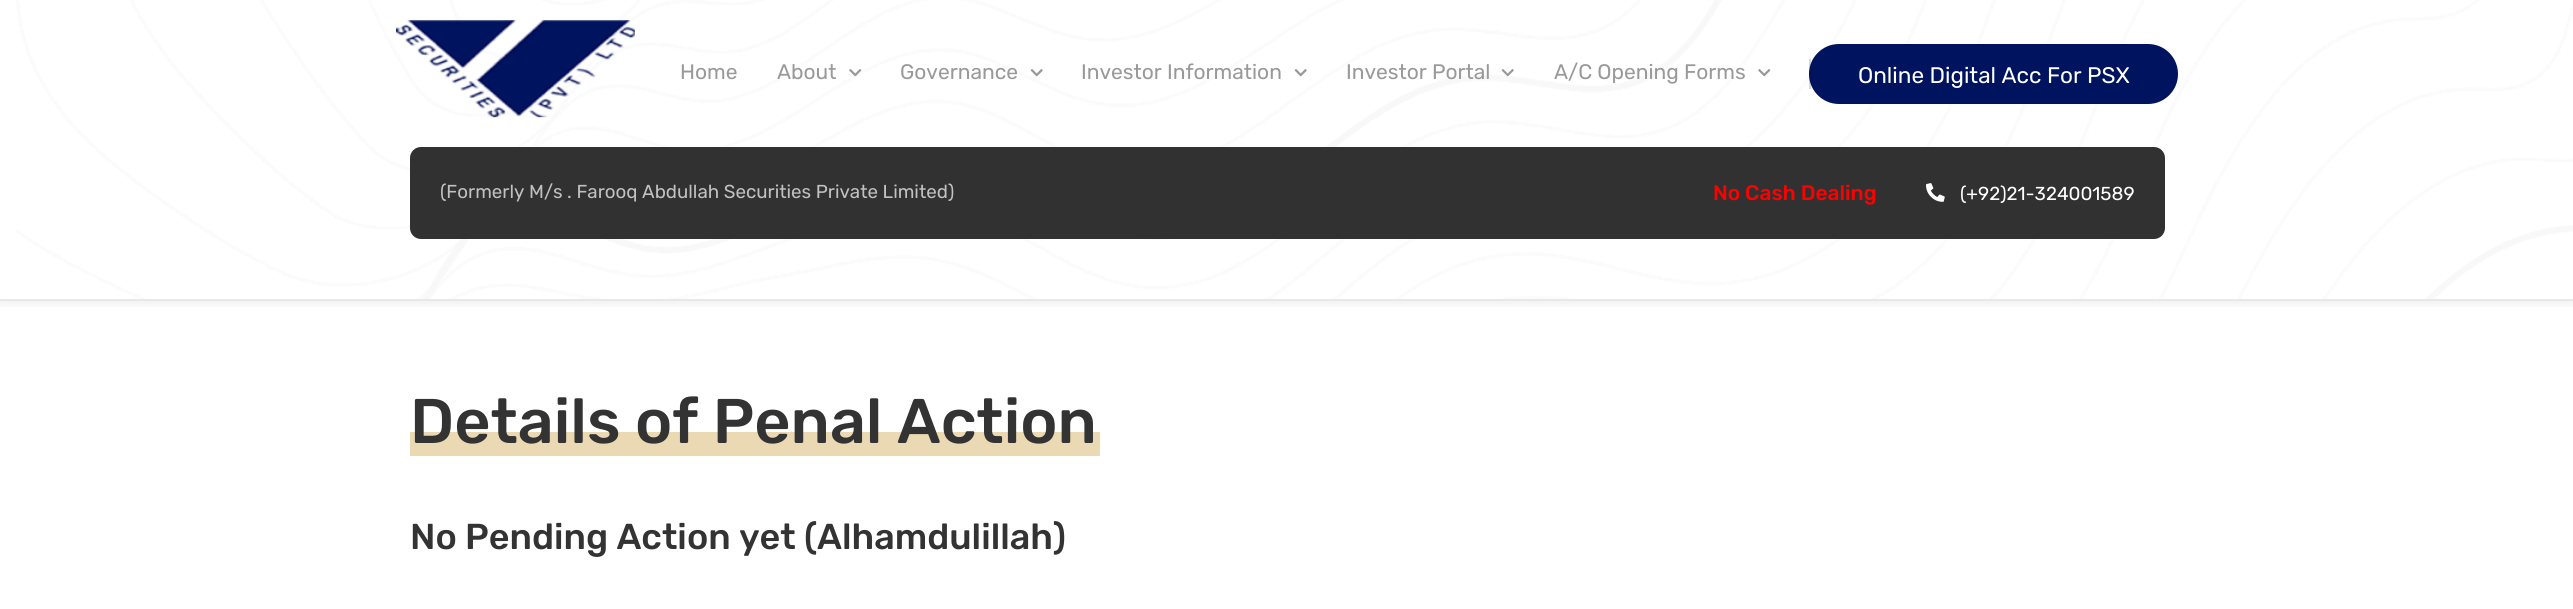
import math
import cairo

surface = cairo.ImageSurface(cairo.FORMAT_RGB24, 2573, 609)
cr = cairo.Context(surface)
options = cairo.FontOptions()
options.set_hint_metrics(cairo.HINT_METRICS_OFF)
options.set_hint_style(cairo.HINT_STYLE_NONE)
cr.set_font_options(options)
cr.set_miter_limit(4)


def rgb(code):
    cr.set_source_rgb(*(v / 255 for v in bytes.fromhex(code[-6:])))


def rrect(x, y, w, h, r):
    cr.new_sub_path()
    for i, (u, v) in enumerate([(x + w - r, y + h - r), (x + r, y + h - r), (x + r, y + r), (x + w - r, y + r)]):
        cr.arc(u, v, r, i * math.pi / 2, (i + 1) * math.pi / 2)
    cr.close_path()


def soft_shadow(x, y, w, h, r, blur, alpha):
    cr.push_group_with_content(cairo.CONTENT_ALPHA)
    cr.set_operator(cairo.OPERATOR_SOURCE)
    for i in range(15, -16, -2):
        e = blur * i / 6
        if min(w, h) + 2 * e > 0:
            cr.set_source_rgba(0, 0, 0, alpha * math.erfc((i - 1) / 8.5) / 2)
            rrect(x - e, y - e, w + 2 * e, h + 2 * e, max(0, min(r + e + blur * .6, min(w, h) / 2 + e)))
            cr.fill()
    cr.mask(cr.pop_group())


def image(path, x, y, w, h):
    cr.save()
    cr.set_source_surface(cairo.ImageSurface.create_from_png(path), x, y)
    cr.rectangle(x, y, w, h)
    cr.fill()
    cr.restore()


rgb("#ffffff")
cr.paint()
cr.save()
cr.rectangle(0, 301, 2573, 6)
cr.clip()
rgb("#000000")
soft_shadow(0, 3, 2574, 300, 0, 6, 0.08)
cr.restore()
image("img/1.png", 16, 0, 2557, 299)
rgb("#e8e8e8")
cr.rectangle(0, 299, 2573, 2)
cr.fill()
image("img/2.png", 396, 20, 239, 98)
image("img/3.png", 849, 69, 13, 8)
image("img/4.png", 1030, 69, 13, 8)
image("img/5.png", 1294, 69, 13, 8)
image("img/6.png", 1501, 69, 13, 8)
image("img/7.png", 1758, 69, 13, 8)
rgb("#00135f")
rrect(1809, 44, 369, 60, 30)
cr.fill()
cr.set_source_rgba(0, 0, 0, 0.15)
cr.rectangle(1809, 59, 2, 30)
cr.fill()
rgb("#313131")
rrect(410, 147, 1755, 92, 11)
cr.fill()
image("img/8.png", 1926, 183, 19, 19)
rgb("#ead9b3")
cr.rectangle(410, 432, 690, 24)
cr.fill()
cr.select_font_face("Rubik")
cr.set_font_size(21)
rgb("#999999")
for x, y, s in [
    (680, 79, "Home"),
    (777, 79, "About"),
    (900, 79, "Governance"),
    (1081, 79, "Investor Information"),
    (1346, 79, "Investor Portal"),
    (1554, 79, "A/C Opening Forms"),
]:
    cr.move_to(x, y)
    cr.show_text(s)
cr.set_font_size(22.5)
rgb("#ffffff")
cr.move_to(1858, 83)
cr.show_text("Online Digital Acc For PSX")
cr.set_font_size(18.75)
rgb("#c1c1c1")
cr.move_to(440, 198)
cr.show_text("(Formerly M/s . Farooq Abdullah Securities Private Limited)")
cr.select_font_face("Rubik Medium")
cr.set_font_size(21)
rgb("#ff0000")
cr.move_to(1713, 200)
cr.show_text("No Cash Dealing")
cr.select_font_face("Rubik")
cr.set_font_size(18.75)
rgb("#ffffff")
cr.move_to(1960, 200)
cr.show_text("(+92)21-324001589")
cr.select_font_face("Rubik Medium")
cr.set_font_size(63)
rgb("#333333")
cr.move_to(410, 443)
cr.show_text("Details of Penal Action")
cr.set_font_size(36)
cr.move_to(410, 549)
cr.show_text("No Pending Action yet (Alhamdulillah)")
surface.write_to_png("page.png")
